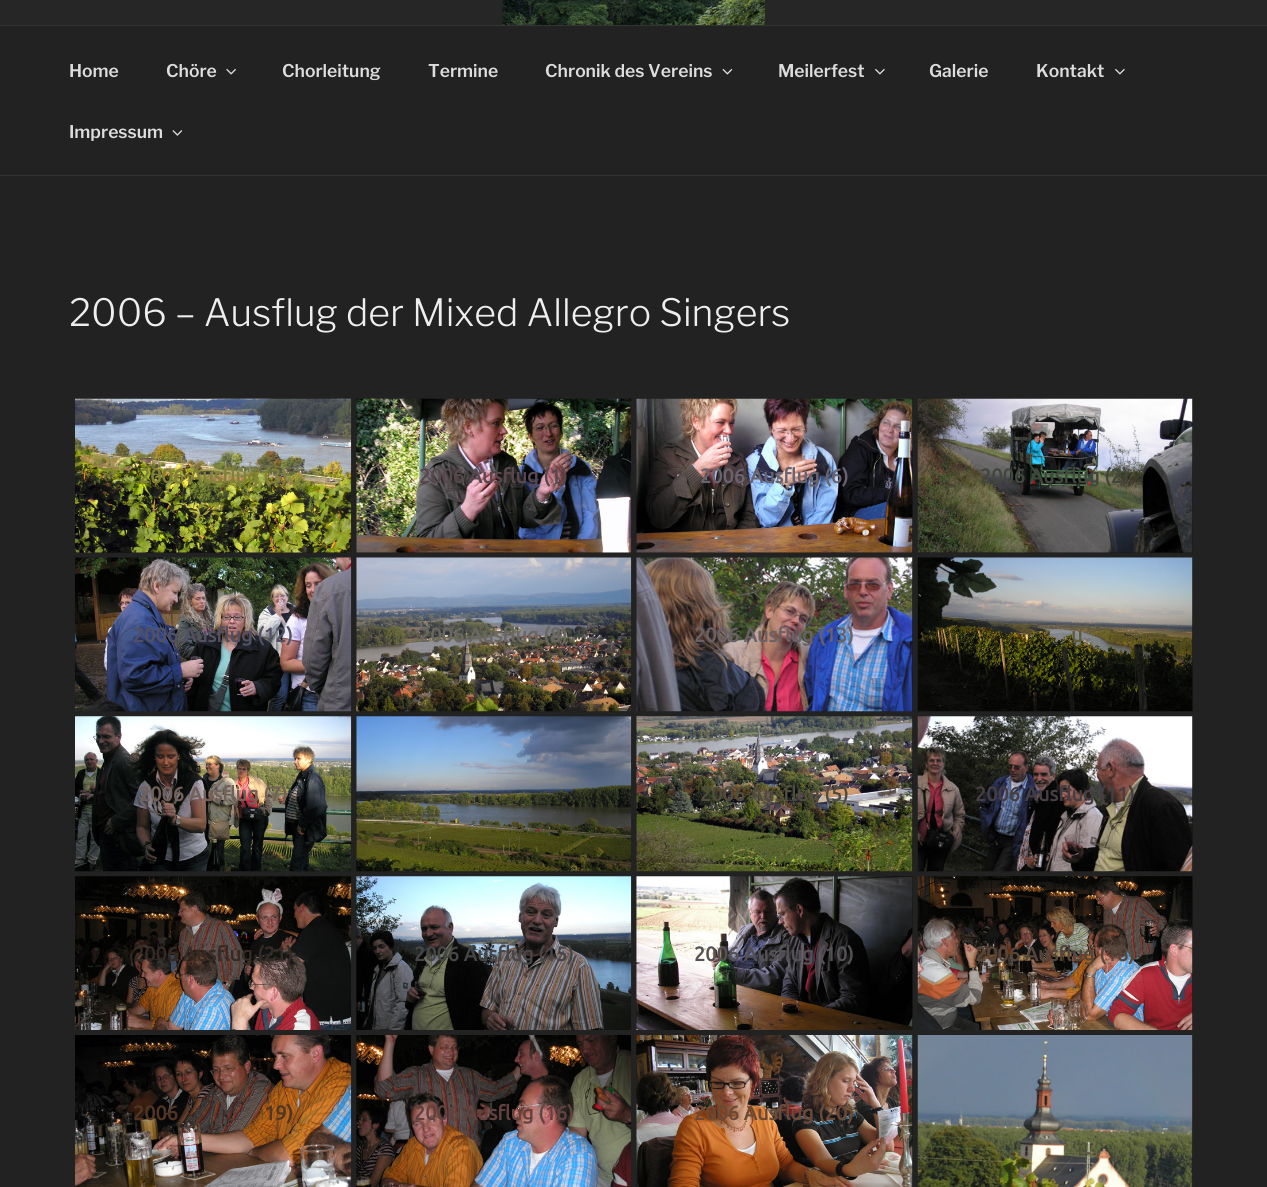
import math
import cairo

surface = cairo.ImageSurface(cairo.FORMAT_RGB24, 1267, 1187)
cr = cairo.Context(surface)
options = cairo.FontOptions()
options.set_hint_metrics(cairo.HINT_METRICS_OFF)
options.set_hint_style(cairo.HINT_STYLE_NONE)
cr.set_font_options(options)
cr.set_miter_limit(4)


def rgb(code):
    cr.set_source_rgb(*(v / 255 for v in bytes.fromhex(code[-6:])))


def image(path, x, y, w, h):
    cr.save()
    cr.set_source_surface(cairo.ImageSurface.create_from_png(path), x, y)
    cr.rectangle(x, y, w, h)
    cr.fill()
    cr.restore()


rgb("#222222")
cr.paint()
rgb("#262626")
cr.rectangle(0, 0, 1267, 25)
cr.fill()
image("img/1.png", 502, 0, 263, 25)
gradient = cairo.LinearGradient(634, 0, 634, 176)
gradient.add_color_stop_rgba(0, 0, 0, 0, 0)
gradient.add_color_stop_rgba(0.75, 0, 0, 0, 0.3)
gradient.add_color_stop_rgba(1, 0, 0, 0, 0.3)
cr.set_source(gradient)
cr.rectangle(503, 9, 262, 16)
cr.fill()
rgb("#333333")
cr.rectangle(0, 25, 1267, 1)
cr.fill()
cr.rectangle(0, 175, 1267, 1)
cr.fill()
image("img/2.png", 226, 68, 10, 7)
image("img/3.png", 722, 68, 11, 7)
image("img/4.png", 875, 68, 10, 7)
image("img/4.png", 1115, 68, 10, 7)
image("img/5.png", 172, 130, 11, 6)
rgb("#181818")
cr.rectangle(75, 552, 276, 1)
cr.fill()
image("img/6.png", 75, 398, 277, 155)
cr.rectangle(356, 399, 275, 154)
cr.fill()
image("img/7.png", 356, 398, 276, 155)
cr.rectangle(636, 399, 277, 154)
cr.fill()
image("img/8.png", 636, 398, 277, 155)
cr.rectangle(918, 399, 275, 154)
cr.fill()
image("img/9.png", 917, 398, 276, 155)
image("img/10.png", 75, 557, 277, 155)
cr.rectangle(356, 558, 1, 153)
cr.fill()
image("img/11.png", 356, 557, 276, 155)
cr.rectangle(636, 558, 277, 153)
cr.fill()
image("img/12.png", 636, 557, 277, 155)
cr.rectangle(1192, 558, 1, 153)
cr.fill()
image("img/13.png", 917, 557, 276, 155)
image("img/14.png", 75, 716, 277, 156)
cr.rectangle(356, 716, 275, 155)
cr.fill()
image("img/15.png", 356, 716, 276, 156)
cr.rectangle(636, 716, 277, 155)
cr.fill()
image("img/16.png", 636, 716, 277, 156)
cr.rectangle(918, 716, 275, 155)
cr.fill()
image("img/17.png", 917, 716, 276, 156)
image("img/18.png", 75, 876, 277, 154)
cr.rectangle(356, 876, 275, 154)
cr.fill()
image("img/19.png", 356, 876, 276, 154)
cr.rectangle(636, 876, 277, 154)
cr.fill()
image("img/20.png", 636, 876, 277, 154)
cr.rectangle(918, 876, 275, 154)
cr.fill()
image("img/21.png", 917, 876, 276, 154)
image("img/22.png", 75, 1035, 277, 152)
cr.rectangle(356, 1035, 1, 152)
cr.fill()
image("img/23.png", 356, 1035, 276, 152)
cr.rectangle(636, 1035, 277, 152)
cr.fill()
image("img/24.png", 636, 1035, 277, 152)
cr.rectangle(1192, 1035, 1, 152)
cr.fill()
image("img/25.png", 917, 1035, 276, 152)
cr.select_font_face("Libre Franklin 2 Thin")
cr.set_font_size(17.5)
rgb("#dddddd")
for x, y, s in [
    (69, 77, "Home"),
    (166, 77, "Chöre"),
    (282, 77, "Chorleitung"),
    (428, 77, "Termine"),
    (545, 77, "Chronik des Vereins"),
    (778, 77, "Meilerfest"),
    (929, 77, "Galerie"),
    (1036, 77, "Kontakt"),
    (69, 138, "Impressum"),
]:
    cr.move_to(x, y)
    cr.show_text(s)
cr.select_font_face("Libre Franklin Thin")
cr.set_font_size(37.5)
rgb("#eeeeee")
cr.move_to(69, 326)
cr.show_text("2006 – Ausflug der Mixed Allegro Singers")
cr.select_font_face("Ubuntu", cairo.FONT_SLANT_NORMAL, cairo.FONT_WEIGHT_BOLD)
cr.set_font_size(20)
rgb("#828039")
cr.move_to(139, 483)
cr.show_text("2006 Ausflug (3)")
rgb("#58484e")
cr.move_to(419, 483)
cr.show_text("2006 Ausflug (1)")
rgb("#696370")
cr.move_to(700, 483)
cr.show_text("2006 Ausflug (6)")
rgb("#41473c")
cr.move_to(980, 483)
cr.show_text("2006 Ausflug (2)")
rgb("#525061")
cr.move_to(133, 642)
cr.show_text("2006 Ausflug (12)")
rgb("#696760")
cr.move_to(419, 642)
cr.show_text("2006 Ausflug (8)")
rgb("#6a6167")
cr.move_to(694, 642)
cr.show_text("2006 Ausflug (13)")
rgb("#605b3a")
cr.move_to(1071, 642)
cr.show_text("u")
rgb("#736058")
cr.move_to(139, 801)
cr.show_text("2006 Ausflug (7)")
rgb("#514c3b")
cr.move_to(700, 801)
cr.show_text("2006 Ausflug (5)")
rgb("#463e43")
cr.move_to(975, 801)
cr.show_text("2006 Ausflug (11)")
rgb("#362a25")
cr.move_to(133, 961)
cr.show_text("2006 Ausflug (21)")
rgb("#464647")
cr.move_to(414, 961)
cr.show_text("2006 Ausflug (15)")
rgb("#545155")
cr.move_to(694, 961)
cr.show_text("2006 Ausflug (10)")
rgb("#56463a")
cr.move_to(975, 961)
cr.show_text("2006 Ausflug (18)")
rgb("#503523")
cr.move_to(133, 1120)
cr.show_text("2006")
cr.move_to(264, 1120)
cr.show_text("19)")
rgb("#62423e")
cr.move_to(414, 1120)
cr.show_text("2006 Ausflug (16)")
rgb("#6b4936")
cr.move_to(694, 1120)
cr.show_text("2006 Ausflug (20)")
surface.write_to_png("page.png")
